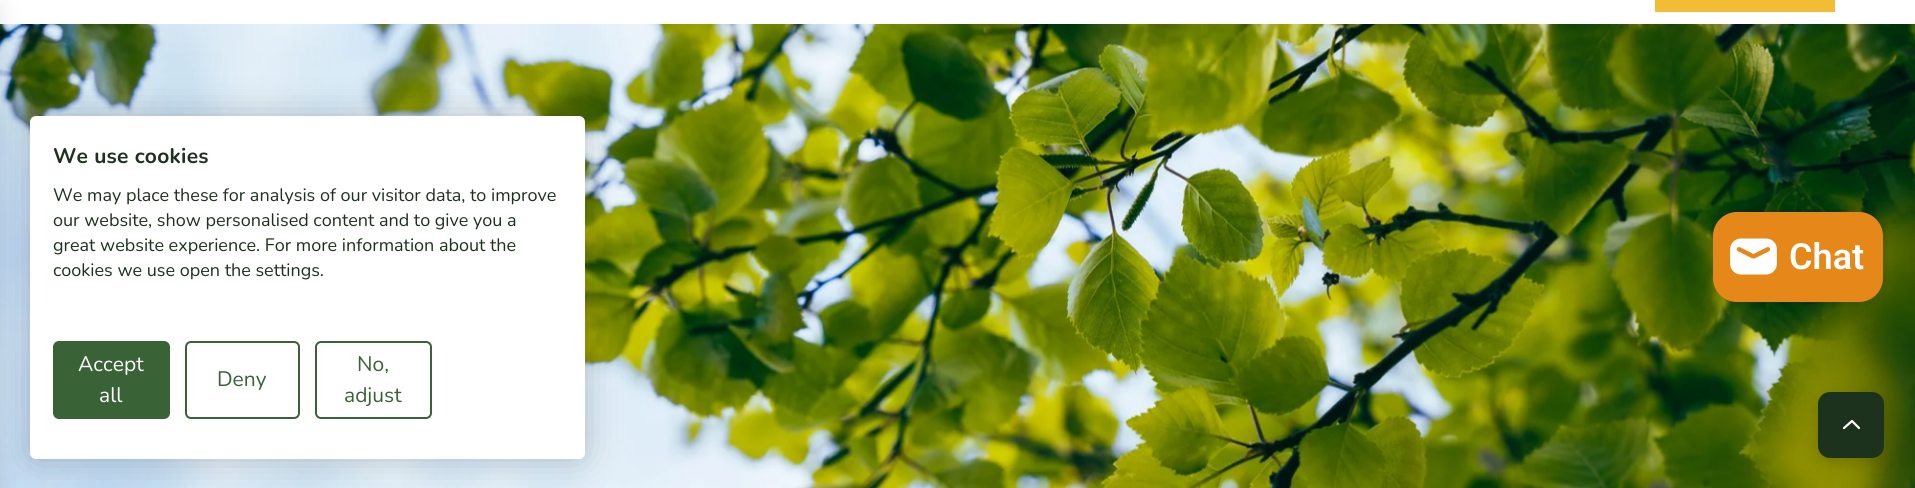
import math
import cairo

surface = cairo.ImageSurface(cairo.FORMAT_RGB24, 1915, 488)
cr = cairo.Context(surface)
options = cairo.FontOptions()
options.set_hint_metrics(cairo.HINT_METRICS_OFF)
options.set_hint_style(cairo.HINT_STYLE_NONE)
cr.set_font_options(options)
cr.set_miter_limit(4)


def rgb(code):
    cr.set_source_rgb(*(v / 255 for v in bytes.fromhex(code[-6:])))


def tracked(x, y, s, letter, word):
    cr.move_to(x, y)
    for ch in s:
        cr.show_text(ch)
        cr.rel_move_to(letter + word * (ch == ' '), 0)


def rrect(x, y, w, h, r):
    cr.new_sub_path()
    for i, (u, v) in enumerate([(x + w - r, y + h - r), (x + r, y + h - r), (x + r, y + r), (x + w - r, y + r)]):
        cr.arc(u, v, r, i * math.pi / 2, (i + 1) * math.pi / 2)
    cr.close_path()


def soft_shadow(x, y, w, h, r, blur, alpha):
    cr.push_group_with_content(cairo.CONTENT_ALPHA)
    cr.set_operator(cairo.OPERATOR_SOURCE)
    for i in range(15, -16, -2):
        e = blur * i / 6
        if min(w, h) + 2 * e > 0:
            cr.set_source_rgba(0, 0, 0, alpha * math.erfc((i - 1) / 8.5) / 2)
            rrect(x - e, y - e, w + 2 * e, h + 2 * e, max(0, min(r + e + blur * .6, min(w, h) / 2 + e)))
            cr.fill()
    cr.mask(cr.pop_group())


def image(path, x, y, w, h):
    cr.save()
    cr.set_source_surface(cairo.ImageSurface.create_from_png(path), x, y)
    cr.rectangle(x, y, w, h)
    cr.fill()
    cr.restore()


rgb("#ffffff")
cr.paint()
image("img/1.png", 0, 24, 1915, 464)
rgb("#000000")
soft_shadow(-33, 8, 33, 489, 0, 11, 0.1)
rgb("#f2bd35")
cr.rectangle(1655, 0, 180, 12)
cr.fill()
rgb("#000000")
soft_shadow(1818, 396, 66, 66, 12, 9, 0.18)
rgb("#1d321c")
rrect(1818, 392, 66, 66, 12)
cr.fill()
cr.new_path()
cr.move_to(1844, 428)
cr.line_to(1852, 421)
cr.line_to(1859, 428)
rgb("#ffffff")
cr.set_line_width(2.2)
cr.set_line_cap(cairo.LINE_CAP_ROUND)
cr.set_line_join(cairo.LINE_JOIN_ROUND)
cr.stroke()
rgb("#000000")
soft_shadow(30, 116, 555, 343, 6, 18, 0.2)
rgb("#ffffff")
rrect(30, 116, 555, 343, 6)
cr.fill()
rgb("#396237")
rrect(54, 342, 115, 76, 5)
cr.fill_preserve()
cr.set_line_width(2)
cr.set_line_cap(cairo.LINE_CAP_BUTT)
cr.set_line_join(cairo.LINE_JOIN_MITER)
cr.stroke()
rrect(186, 342, 113, 76, 5)
cr.stroke()
rrect(316, 342, 115, 76, 5)
cr.stroke()
rgb("#000000")
soft_shadow(1713, 212, 170, 90, 24, 4, 0.15)
rgb("#e68819")
rrect(1713, 212, 170, 90, 24)
cr.fill()
image("img/2.png", 1730, 238, 47, 37)
cr.select_font_face("Nunito", cairo.FONT_SLANT_NORMAL, cairo.FONT_WEIGHT_BOLD)
cr.set_font_size(21)
rgb("#1d321c")
tracked(53, 163, "We use cookies", 0.25, 0)
cr.select_font_face("Nunito")
cr.set_font_size(18)
for x, y, s in [
    (53, 201, "We may place these for analysis of our visitor data, to improve"),
    (53, 226, "our website, show personalised content and to give you a"),
    (53, 251, "great website experience. For more information about the"),
    (53, 276, "cookies we use open the settings."),
]:
    cr.move_to(x, y)
    cr.show_text(s)
cr.set_font_size(21)
rgb("#ffffff")
cr.move_to(78, 371)
cr.show_text("Accept")
cr.move_to(99, 402)
cr.show_text("all")
rgb("#396237")
for x, y, s in [
    (217, 386, "Deny"),
    (357, 371, "No,"),
    (344, 402, "adjust"),
]:
    cr.move_to(x, y)
    cr.show_text(s)
cr.select_font_face("Roboto SemiBold")
cr.set_font_size(36)
rgb("#ffffff")
cr.move_to(1789, 269)
cr.show_text("Chat")
surface.write_to_png("page.png")
